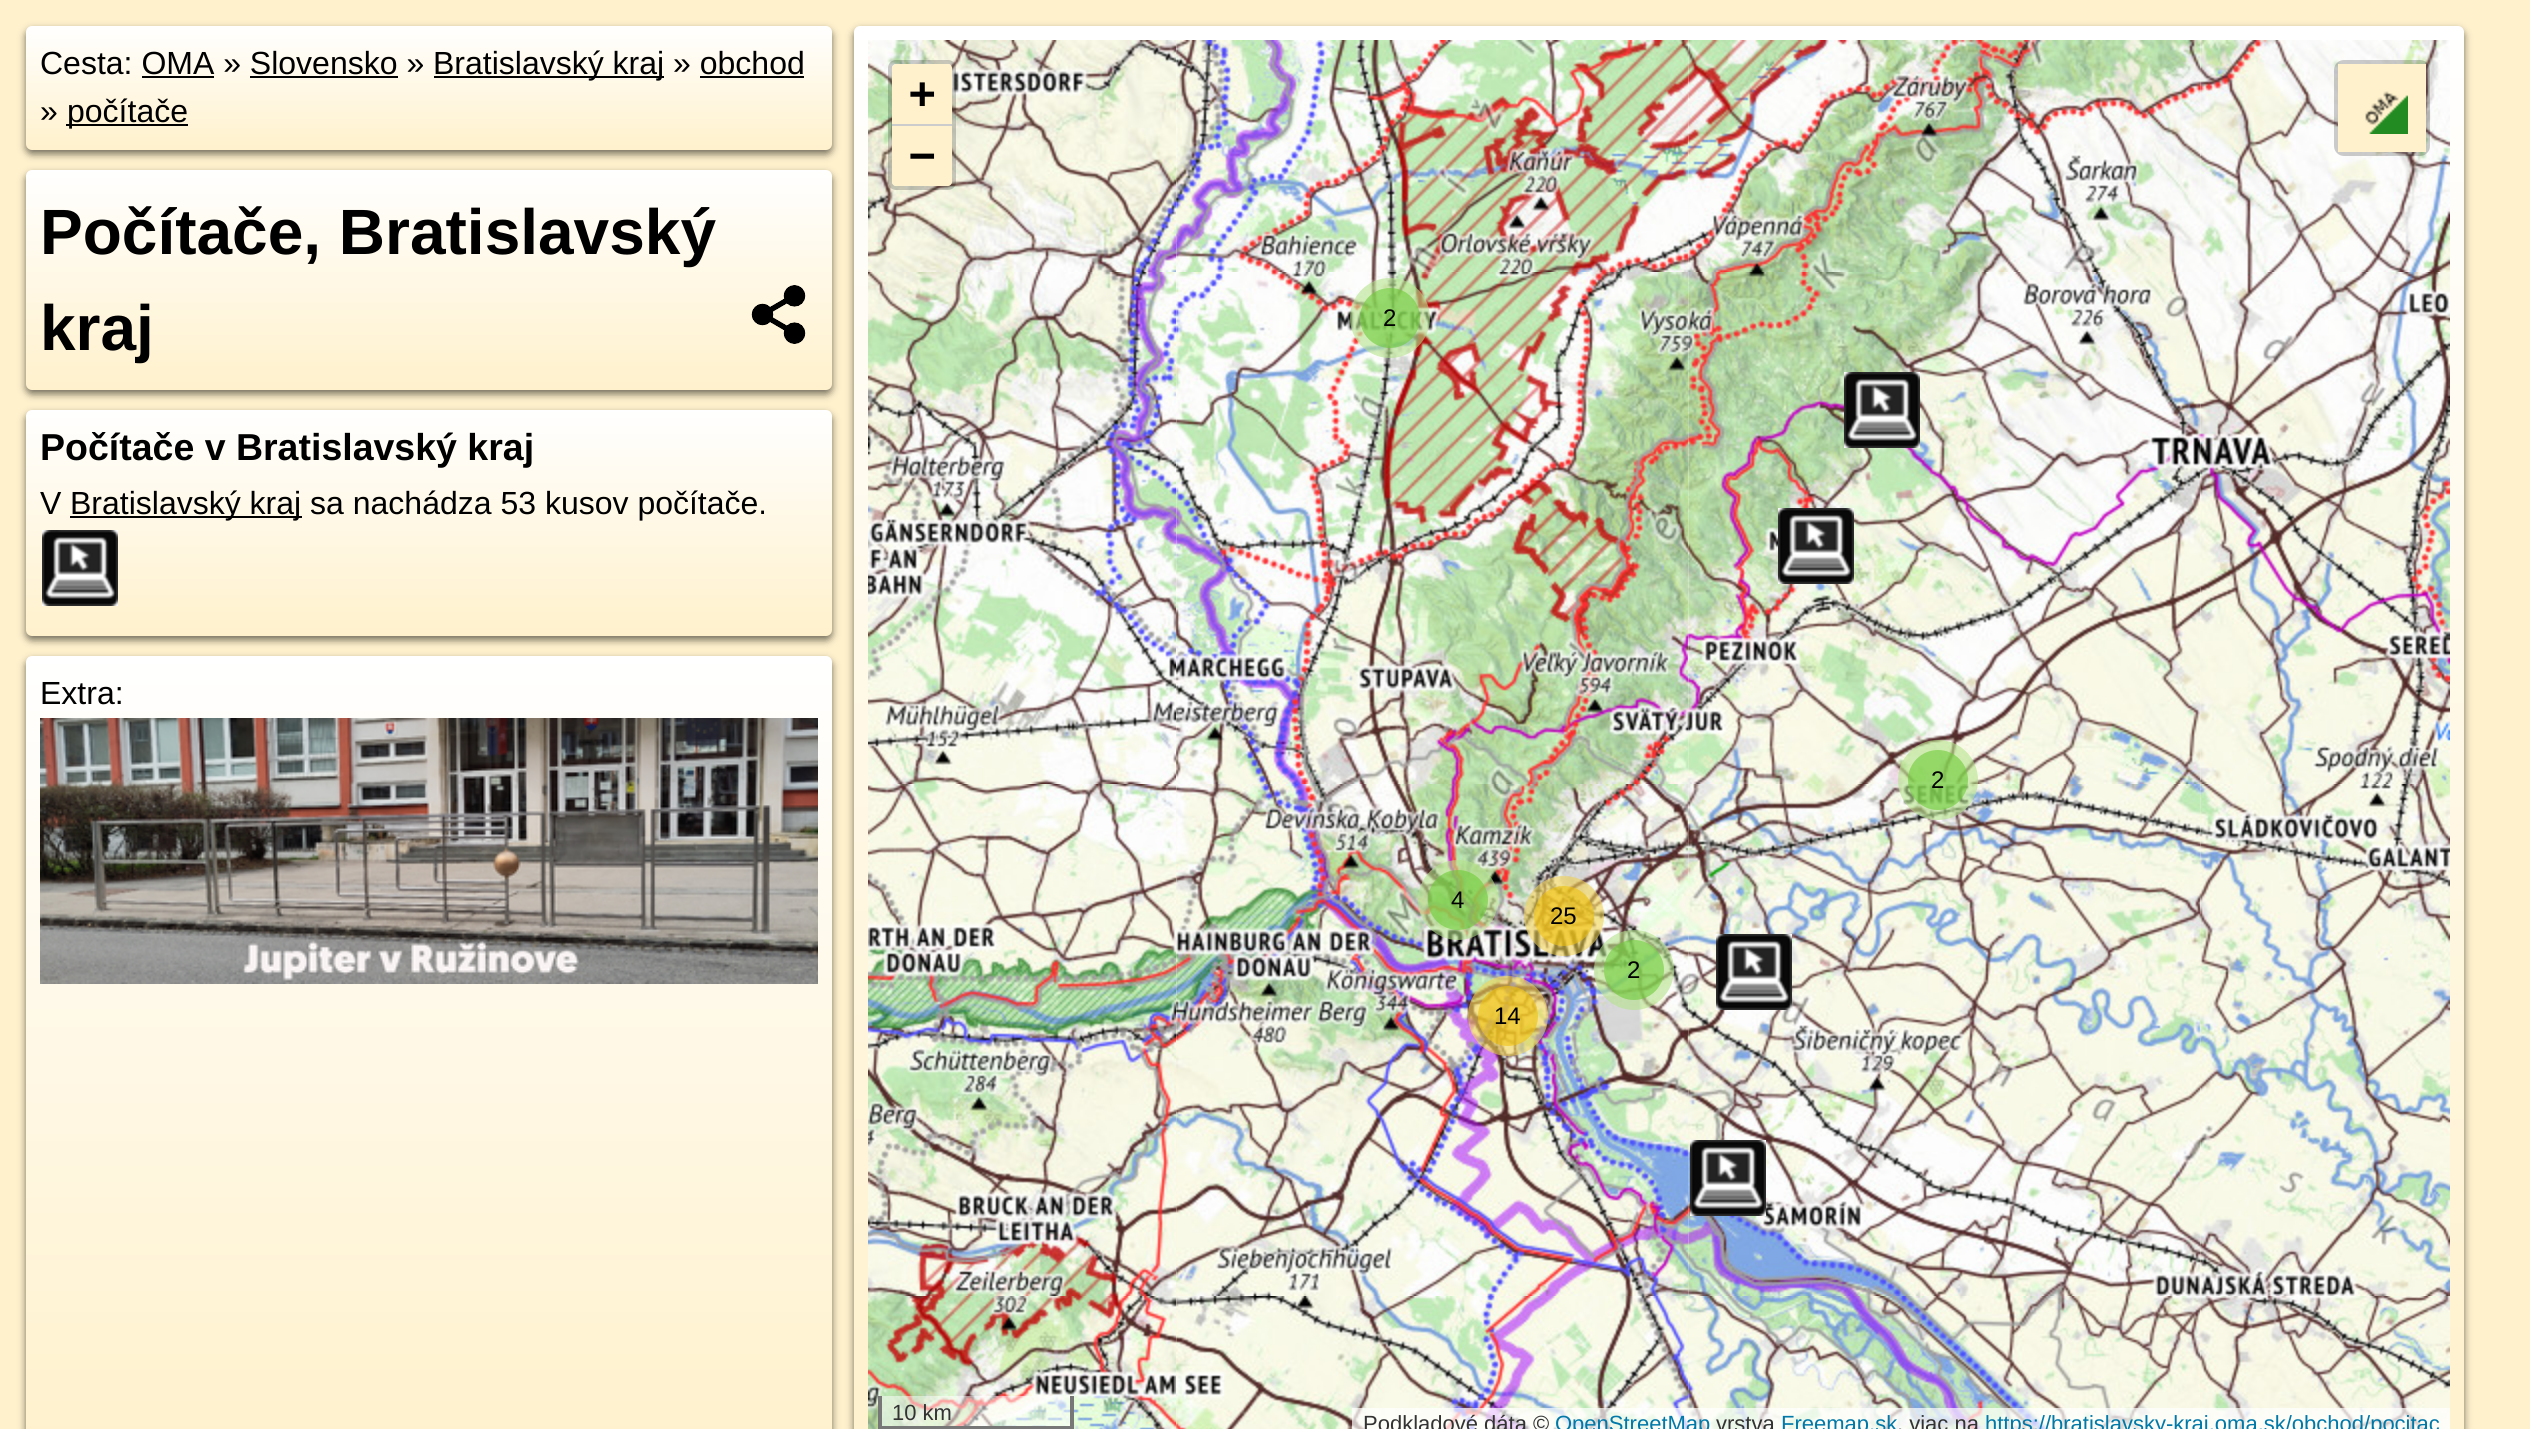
import math
import cairo

surface = cairo.ImageSurface(cairo.FORMAT_RGB24, 2530, 1429)
cr = cairo.Context(surface)
options = cairo.FontOptions()
options.set_hint_metrics(cairo.HINT_METRICS_OFF)
options.set_hint_style(cairo.HINT_STYLE_NONE)
cr.set_font_options(options)
cr.set_miter_limit(4)


def rgb(code):
    cr.set_source_rgb(*(v / 255 for v in bytes.fromhex(code[-6:])))


def rrect(x, y, w, h, r):
    cr.new_sub_path()
    for i, (u, v) in enumerate([(x + w - r, y + h - r), (x + r, y + h - r), (x + r, y + r), (x + w - r, y + r)]):
        cr.arc(u, v, r, i * math.pi / 2, (i + 1) * math.pi / 2)
    cr.close_path()


def soft_shadow(x, y, w, h, r, blur, alpha):
    cr.push_group_with_content(cairo.CONTENT_ALPHA)
    cr.set_operator(cairo.OPERATOR_SOURCE)
    for i in range(15, -16, -2):
        e = blur * i / 6
        if min(w, h) + 2 * e > 0:
            cr.set_source_rgba(0, 0, 0, alpha * math.erfc((i - 1) / 8.5) / 2)
            rrect(x - e, y - e, w + 2 * e, h + 2 * e, max(0, min(r + e + blur * .6, min(w, h) / 2 + e)))
            cr.fill()
    cr.mask(cr.pop_group())


def image(path, x, y, w, h):
    cr.save()
    cr.set_source_surface(cairo.ImageSurface.create_from_png(path), x, y)
    cr.rectangle(x, y, w, h)
    cr.fill()
    cr.restore()


rgb("#fff1cc")
cr.paint()
rgb("#000000")
soft_shadow(26, 30, 806, 124, 6, 4, 0.55)
gradient = cairo.LinearGradient(429, 26, 429, 150)
gradient.add_color_stop_rgba(0, 1, 1, 1, 1)
gradient.add_color_stop_rgba(1, 1, 0.945, 0.8, 1)
cr.set_source(gradient)
rrect(26, 26, 806, 124, 6)
cr.fill()
for x, y, w, h, color in [
    (434, 76, 230, 2, "#000000"),
    (142, 76, 72, 2, "#000000"),
    (250, 76, 148, 2, "#000000"),
    (700, 76, 104, 2, "#000000"),
    (66, 124, 122, 2, "#000000"),
]:
    rgb(color)
    cr.rectangle(x, y, w, h)
    cr.fill()
rgb("#000000")
soft_shadow(26, 174, 806, 220, 6, 4, 0.55)
gradient = cairo.LinearGradient(429, 170, 429, 390)
gradient.add_color_stop_rgba(0, 1, 1, 1, 1)
gradient.add_color_stop_rgba(1, 1, 0.945, 0.8, 1)
cr.set_source(gradient)
rrect(26, 170, 806, 220, 6)
cr.fill()
image("img/1.png", 751, 285, 55, 59)
rgb("#000000")
soft_shadow(26, 414, 806, 226, 6, 4, 0.55)
gradient = cairo.LinearGradient(429, 410, 429, 636)
gradient.add_color_stop_rgba(0, 1, 1, 1, 1)
gradient.add_color_stop_rgba(1, 1, 0.945, 0.8, 1)
cr.set_source(gradient)
rrect(26, 410, 806, 226, 6)
cr.fill()
rgb("#000000")
cr.rectangle(70, 516, 232, 2)
cr.fill()
image("img/2.png", 42, 530, 76, 76)
rgb("#000000")
soft_shadow(26, 660, 806, 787, 6, 4, 0.55)
gradient = cairo.LinearGradient(429, 656, 429, 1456)
gradient.add_color_stop_rgba(0, 1, 1, 1, 1)
gradient.add_color_stop_rgba(1, 1, 0.945, 0.8, 1)
cr.set_source(gradient)
rrect(26, 656, 806, 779, 6)
cr.fill()
image("img/3.png", 40, 718, 778, 266)
rgb("#000000")
soft_shadow(854, 30, 1610, 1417, 6, 4, 0.55)
gradient = cairo.LinearGradient(1659, 26, 1659, 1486)
gradient.add_color_stop_rgba(0, 1, 1, 1, 1)
gradient.add_color_stop_rgba(1, 1, 0.945, 0.8, 1)
cr.set_source(gradient)
rrect(854, 26, 1610, 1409, 6)
cr.fill()
image("img/5.png", 868, 40, 308, 232)
rrect(890, 62, 64, 126, 6)
cr.set_source_rgba(0, 0, 0, 0.2)
cr.set_line_width(4)
cr.stroke()
rgb("#fff1cc")
cr.new_path()
cr.move_to(896, 64)
cr.line_to(948, 64)
cr.curve_to(950, 64, 952, 66, 952, 68)
cr.line_to(952, 126)
cr.line_to(892, 126)
cr.line_to(892, 68)
cr.curve_to(892, 66, 894, 64, 896, 64)
cr.close_path()
cr.fill()
rgb("#cccccc")
cr.rectangle(892, 124, 60, 2)
cr.fill()
rgb("#fff1cc")
cr.new_path()
cr.move_to(892, 126)
cr.line_to(952, 126)
cr.line_to(952, 182)
cr.curve_to(952, 184, 950, 186, 948, 186)
cr.line_to(896, 186)
cr.curve_to(894, 186, 892, 184, 892, 182)
cr.close_path()
cr.fill()
image("img/6.png", 1176, 40, 512, 232)
image("img/7.png", 1687, 40, 513, 232)
image("img/8.png", 2199, 40, 251, 232)
rrect(2336, 62, 92, 92, 8)
cr.set_source_rgba(0, 0, 0, 0.2)
cr.stroke()
rgb("#fff1cc")
cr.rectangle(2338, 64, 88, 88)
cr.fill()
image("img/4.png", 2365, 91, 43, 43)
image("img/17.png", 868, 1296, 308, 133)
cr.set_source_rgba(1, 1, 1, 0.5)
cr.rectangle(882, 1396, 188, 30)
cr.fill()
rgb("#777777")
cr.rectangle(1070, 1396, 4, 33)
cr.rectangle(878, 1426, 196, 3)
cr.rectangle(878, 1396, 4, 33)
cr.fill()
image("img/18.png", 1176, 1296, 512, 133)
image("img/19.png", 1687, 1296, 513, 133)
image("img/20.png", 2199, 1296, 251, 133)
cr.set_source_rgba(1, 1, 1, 0.7)
cr.rectangle(1352, 1408, 1098, 21)
cr.fill()
image("img/9.png", 868, 272, 308, 512)
image("img/10.png", 1176, 272, 512, 512)
image("img/11.png", 1687, 272, 513, 512)
image("img/12.png", 2199, 272, 251, 512)
image("img/13.png", 868, 784, 308, 512)
image("img/14.png", 1176, 784, 512, 512)
image("img/15.png", 1687, 784, 513, 512)
image("img/16.png", 2199, 784, 251, 512)
cr.set_source_rgba(0.71, 0.886, 0.549, 0.6)
cr.arc(1390, 318, 40, 0, 2 * math.pi)
cr.fill()
cr.set_source_rgba(0.431, 0.8, 0.224, 0.6)
cr.arc(1390, 318, 30, 0, 2 * math.pi)
cr.fill()
image("img/2.png", 1844, 372, 76, 76)
image("img/2.png", 1778, 508, 76, 76)
cr.set_source_rgba(0.71, 0.886, 0.549, 0.6)
cr.arc(1938, 780, 40, 0, 2 * math.pi)
cr.fill()
cr.set_source_rgba(0.431, 0.8, 0.224, 0.6)
cr.arc(1938, 780, 30, 0, 2 * math.pi)
cr.fill()
cr.set_source_rgba(0.71, 0.886, 0.549, 0.6)
cr.arc(1458, 900, 40, 0, 2 * math.pi)
cr.fill()
cr.set_source_rgba(0.431, 0.8, 0.224, 0.6)
cr.arc(1458, 900, 30, 0, 2 * math.pi)
cr.fill()
cr.set_source_rgba(0.945, 0.827, 0.341, 0.6)
cr.arc(1564, 916, 40, 0, 2 * math.pi)
cr.fill()
cr.set_source_rgba(0.941, 0.761, 0.047, 0.6)
cr.arc(1564, 916, 30, 0, 2 * math.pi)
cr.fill()
cr.set_source_rgba(0.71, 0.886, 0.549, 0.6)
cr.arc(1634, 970, 40, 0, 2 * math.pi)
cr.fill()
cr.set_source_rgba(0.431, 0.8, 0.224, 0.6)
cr.arc(1634, 970, 30, 0, 2 * math.pi)
cr.fill()
image("img/2.png", 1716, 934, 76, 76)
cr.set_source_rgba(0.945, 0.827, 0.341, 0.6)
cr.arc(1508, 1016, 40, 0, 2 * math.pi)
cr.fill()
cr.set_source_rgba(0.941, 0.761, 0.047, 0.6)
cr.arc(1508, 1016, 30, 0, 2 * math.pi)
cr.fill()
image("img/2.png", 1690, 1140, 76, 76)
cr.select_font_face("Liberation Sans")
cr.set_font_size(32)
rgb("#000000")
for x, y, s in [
    (40, 74, "Cesta: OMA » Slovensko »"),
    (433, 74, "Bratislavský kraj » obchod"),
    (40, 122, "»"),
    (67, 122, "počítače"),
]:
    cr.move_to(x, y)
    cr.show_text(s)
cr.select_font_face("Liberation Sans", cairo.FONT_SLANT_NORMAL, cairo.FONT_WEIGHT_BOLD)
cr.set_font_size(64)
cr.move_to(40, 254)
cr.show_text("Počítače, Bratislavský")
cr.move_to(40, 350)
cr.show_text("kraj")
cr.set_font_size(37.5)
cr.move_to(40, 460)
cr.show_text("Počítače v Bratislavský kraj")
cr.select_font_face("Liberation Sans")
cr.set_font_size(32)
for x, y, s in [
    (40, 514, "V"),
    (70, 514, "Bratislavský kraj sa nachádza 53 kusov počítače."),
    (40, 704, "Extra:"),
]:
    cr.move_to(x, y)
    cr.show_text(s)
cr.select_font_face("DejaVu Sans Mono", cairo.FONT_SLANT_NORMAL, cairo.FONT_WEIGHT_BOLD)
cr.set_font_size(44)
cr.move_to(909, 108)
cr.show_text("+")
cr.move_to(909, 170)
cr.show_text("−")
cr.select_font_face("Liberation Sans")
cr.set_font_size(22)
rgb("#333333")
cr.move_to(892, 1420)
cr.show_text("10 km")
cr.move_to(1363, 1431)
cr.show_text("Podkladové dáta ©")
rgb("#0078a8")
cr.move_to(1555, 1431)
cr.show_text("OpenStreetMap")
rgb("#333333")
cr.move_to(1716, 1431)
cr.show_text("vrstva")
rgb("#0078a8")
cr.move_to(1781, 1431)
cr.show_text("Freemap.sk")
rgb("#333333")
cr.move_to(1897, 1431)
cr.show_text(", viac na")
rgb("#0078a8")
cr.move_to(1985, 1431)
cr.show_text("https://bratislavsky-kraj.oma.sk/obchod/pocitac")
cr.set_font_size(24)
rgb("#000000")
for x, y, s in [
    (1383, 326, "2"),
    (1931, 788, "2"),
    (1451, 908, "4"),
    (1550, 924, "25"),
    (1627, 978, "2"),
    (1494, 1024, "14"),
]:
    cr.move_to(x, y)
    cr.show_text(s)
surface.write_to_png("page.png")
